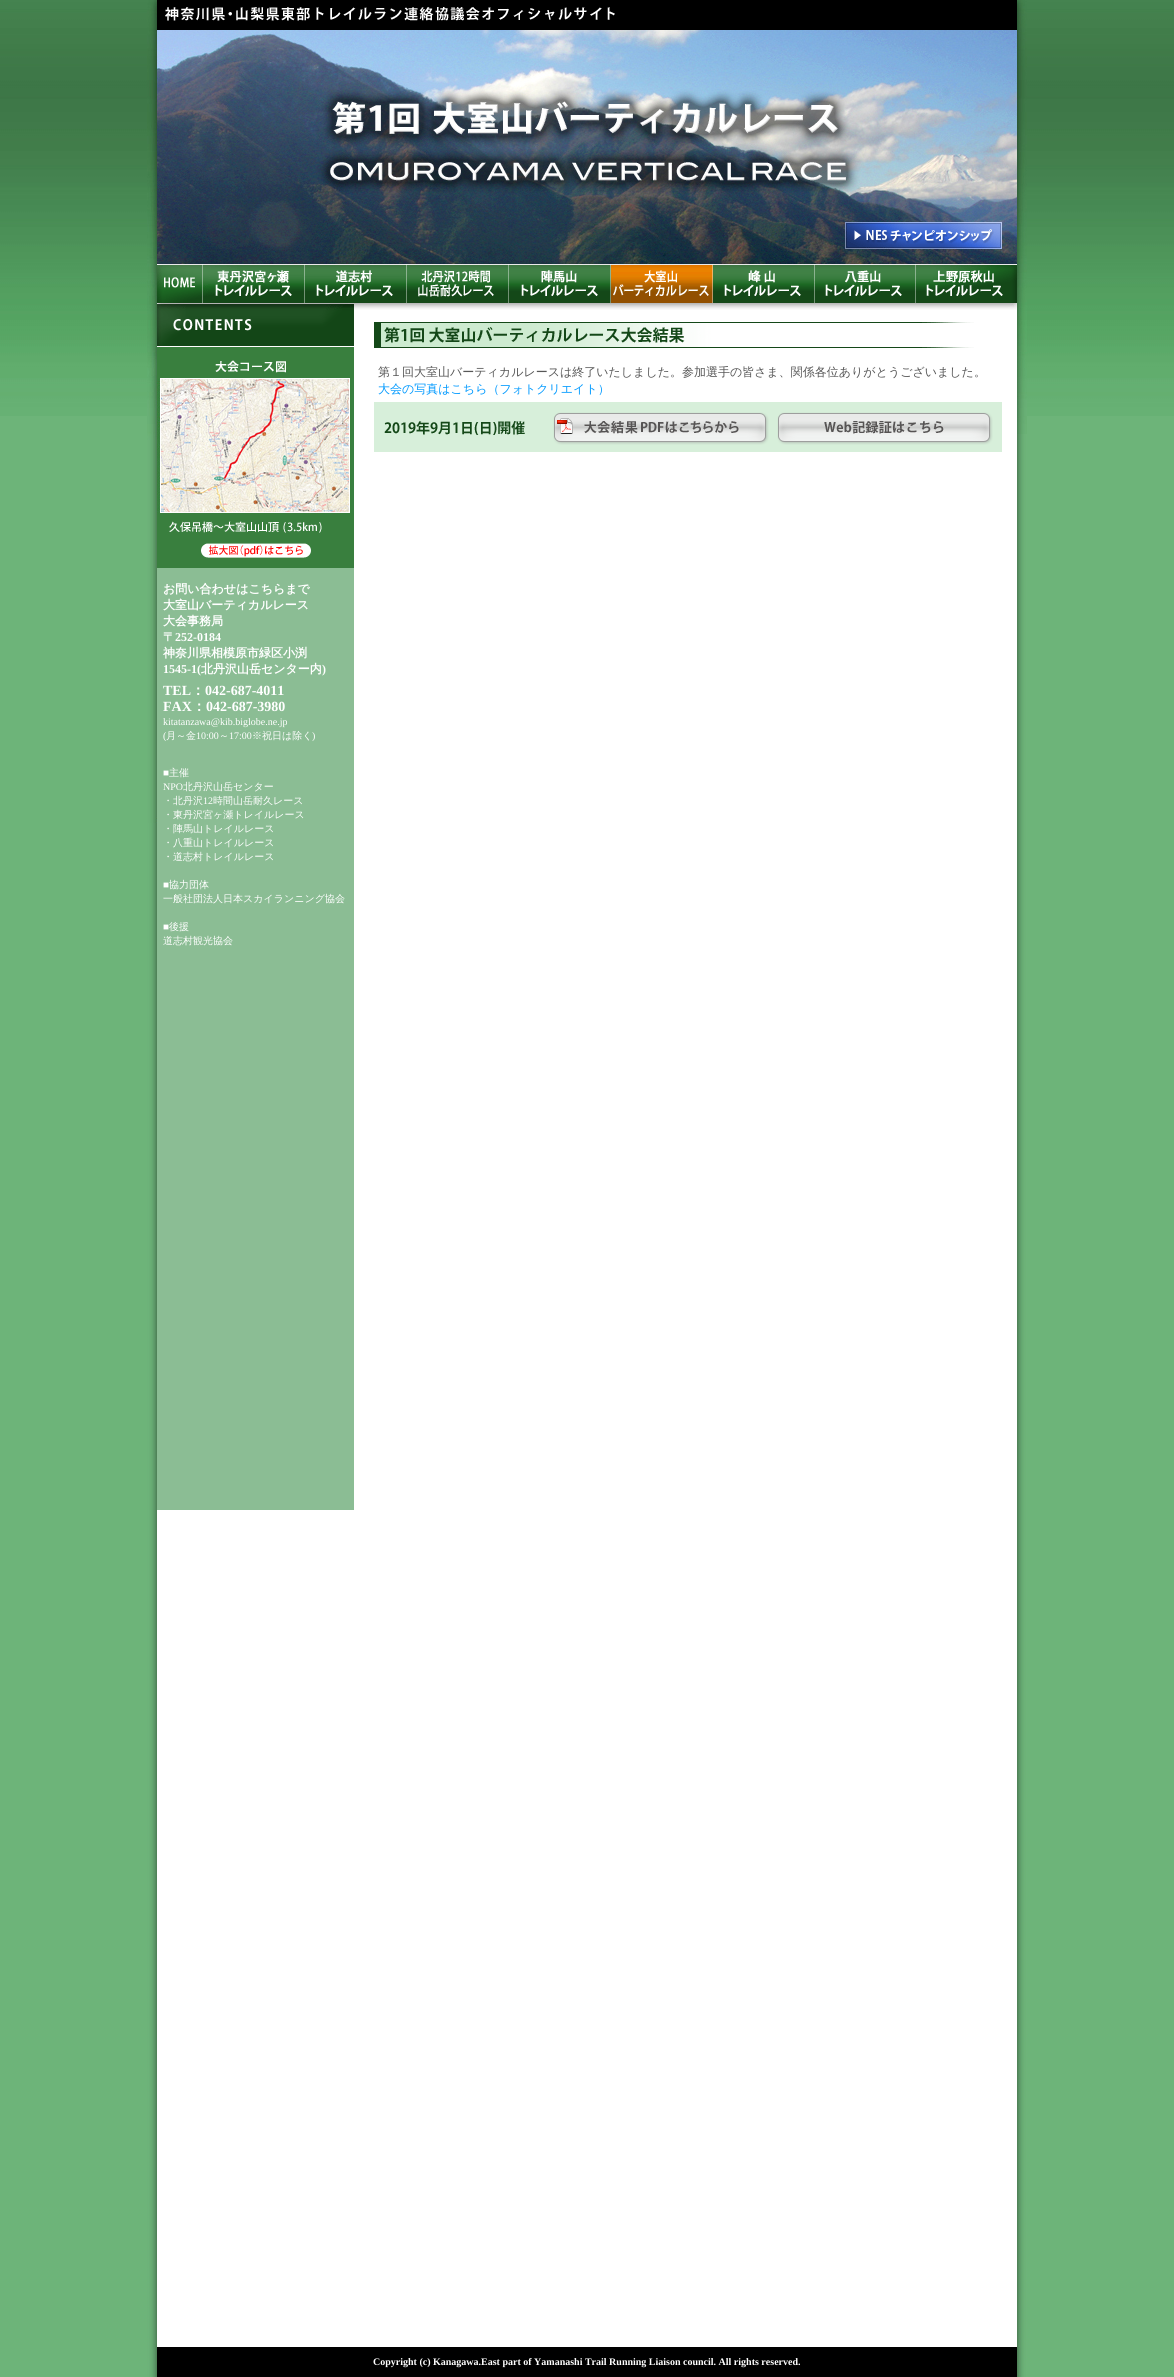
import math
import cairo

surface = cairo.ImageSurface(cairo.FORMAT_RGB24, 1174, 2377)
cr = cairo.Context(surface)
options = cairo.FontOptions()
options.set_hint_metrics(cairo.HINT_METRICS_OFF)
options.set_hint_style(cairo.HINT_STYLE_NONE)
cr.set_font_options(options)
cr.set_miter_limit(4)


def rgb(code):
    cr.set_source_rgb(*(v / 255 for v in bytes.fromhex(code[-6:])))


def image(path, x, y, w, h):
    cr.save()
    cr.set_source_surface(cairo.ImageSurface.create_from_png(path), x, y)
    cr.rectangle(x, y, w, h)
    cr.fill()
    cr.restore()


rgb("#6db479")
cr.paint()
image("img/1.png", 0, 0, 1174, 416)
image("img/2.png", 147, 823, 10, 1554)
image("img/3.png", 147, 0, 10, 823)
rgb("#ffffff")
cr.rectangle(157, 310, 860, 2037)
cr.fill()
rgb("#000000")
cr.rectangle(157, 0, 860, 30)
cr.fill()
image("img/4.png", 165, 7, 450, 14)
image("img/5.png", 157, 30, 860, 234)
image("img/6.png", 845, 222, 157, 27)
image("img/7.png", 157, 264, 46, 46)
image("img/8.png", 203, 264, 102, 46)
image("img/9.png", 305, 264, 102, 46)
image("img/10.png", 407, 264, 102, 46)
image("img/11.png", 509, 264, 102, 46)
image("img/12.png", 611, 264, 102, 46)
image("img/13.png", 713, 264, 102, 46)
image("img/14.png", 815, 264, 101, 46)
image("img/15.png", 916, 264, 101, 46)
image("img/16.png", 374, 322, 600, 26)
image("img/17.png", 374, 402, 168, 50)
rgb("#d7efda")
cr.rectangle(542, 402, 230, 50)
cr.fill()
image("img/18.png", 553, 412, 216, 33)
image("img/19.png", 772, 402, 230, 50)
rgb("#8bbd94")
cr.rectangle(157, 568, 197, 942)
cr.fill()
image("img/20.png", 157, 310, 197, 37)
image("img/21.png", 157, 347, 197, 32)
image("img/22.png", 157, 379, 197, 134)
image("img/23.png", 157, 513, 197, 30)
rgb("#397f3e")
cr.rectangle(157, 543, 197, 25)
cr.fill()
image("img/24.png", 201, 543, 110, 15)
rgb("#000000")
cr.rectangle(157, 2347, 860, 30)
cr.fill()
image("img/25.png", 1017, 434, 10, 1943)
image("img/26.png", 1017, 0, 10, 434)
cr.select_font_face("WenQuanYi Zen Hei Medium")
cr.set_font_size(12)
rgb("#575757")
cr.move_to(378, 376)
cr.show_text("第１回大室山バーティカルレースは終了いたしました。参加選手の皆さま、関係各位ありがとうございました。")
rgb("#0099ff")
cr.move_to(378, 393)
cr.show_text("大会の写真はこちら（フォトクリエイト）")
cr.select_font_face("WenQuanYi Zen Hei", cairo.FONT_SLANT_NORMAL, cairo.FONT_WEIGHT_BOLD)
rgb("#ffffff")
for x, y, s in [
    (163, 593, "お問い合わせはこちらまで"),
    (163, 609, "大室山バーティカルレース"),
    (163, 625, "大会事務局"),
    (163, 641, "〒"),
]:
    cr.move_to(x, y)
    cr.show_text(s)
cr.select_font_face("Liberation Serif", cairo.FONT_SLANT_NORMAL, cairo.FONT_WEIGHT_BOLD)
cr.move_to(175, 641)
cr.show_text("252-0184")
cr.select_font_face("WenQuanYi Zen Hei", cairo.FONT_SLANT_NORMAL, cairo.FONT_WEIGHT_BOLD)
cr.move_to(163, 657)
cr.show_text("神奈川県相模原市緑区小渕")
cr.select_font_face("Liberation Serif", cairo.FONT_SLANT_NORMAL, cairo.FONT_WEIGHT_BOLD)
cr.move_to(163, 673)
cr.show_text("1545-1(")
cr.select_font_face("WenQuanYi Zen Hei", cairo.FONT_SLANT_NORMAL, cairo.FONT_WEIGHT_BOLD)
cr.move_to(201, 673)
cr.show_text("北丹沢山岳センター内")
cr.select_font_face("Liberation Serif", cairo.FONT_SLANT_NORMAL, cairo.FONT_WEIGHT_BOLD)
cr.move_to(322, 673)
cr.show_text(")")
cr.set_font_size(14)
cr.move_to(163, 695)
cr.show_text("TEL")
cr.select_font_face("WenQuanYi Zen Hei", cairo.FONT_SLANT_NORMAL, cairo.FONT_WEIGHT_BOLD)
cr.move_to(191, 695)
cr.show_text("：")
cr.select_font_face("Liberation Serif", cairo.FONT_SLANT_NORMAL, cairo.FONT_WEIGHT_BOLD)
cr.move_to(205, 695)
cr.show_text("042-687-4011")
cr.move_to(163, 711)
cr.show_text("FAX")
cr.select_font_face("WenQuanYi Zen Hei", cairo.FONT_SLANT_NORMAL, cairo.FONT_WEIGHT_BOLD)
cr.move_to(192, 711)
cr.show_text("：")
cr.select_font_face("Liberation Serif", cairo.FONT_SLANT_NORMAL, cairo.FONT_WEIGHT_BOLD)
cr.move_to(206, 711)
cr.show_text("042-687-3980")
cr.select_font_face("Liberation Serif")
cr.set_font_size(10)
cr.move_to(163, 725)
cr.show_text("kitatanzawa@kib.biglobe.ne.jp")
cr.move_to(163, 739)
cr.show_text("(")
cr.select_font_face("WenQuanYi Zen Hei Medium")
cr.move_to(166, 739)
cr.show_text("月～金")
cr.select_font_face("Liberation Serif")
cr.move_to(196, 739)
cr.show_text("10:00")
cr.select_font_face("WenQuanYi Zen Hei Medium")
cr.move_to(219, 739)
cr.show_text("～")
cr.select_font_face("Liberation Serif")
cr.move_to(229, 739)
cr.show_text("17:00")
cr.select_font_face("WenQuanYi Zen Hei Medium")
cr.move_to(252, 739)
cr.show_text("※祝日は除く")
cr.select_font_face("Liberation Serif")
cr.move_to(312, 739)
cr.show_text(")")
cr.move_to(163, 776)
cr.show_text("■")
cr.select_font_face("WenQuanYi Zen Hei Medium")
cr.move_to(169, 776)
cr.show_text("主催")
cr.select_font_face("Liberation Serif")
cr.move_to(163, 790)
cr.show_text("NPO")
cr.select_font_face("WenQuanYi Zen Hei Medium")
cr.move_to(183, 790)
cr.show_text("北丹沢山岳センター")
cr.move_to(163, 804)
cr.show_text("・北丹沢")
cr.select_font_face("Liberation Serif")
cr.move_to(203, 804)
cr.show_text("12")
cr.select_font_face("WenQuanYi Zen Hei Medium")
for x, y, s in [
    (213, 804, "時間山岳耐久レース"),
    (163, 818, "・東丹沢宮ヶ瀬トレイルレース"),
    (163, 832, "・陣馬山トレイルレース"),
    (163, 846, "・八重山トレイルレース"),
    (163, 860, "・道志村トレイルレース"),
]:
    cr.move_to(x, y)
    cr.show_text(s)
cr.select_font_face("Liberation Serif")
cr.move_to(163, 888)
cr.show_text("■")
cr.select_font_face("WenQuanYi Zen Hei Medium")
cr.move_to(169, 888)
cr.show_text("協力団体")
cr.move_to(163, 902)
cr.show_text("一般社団法人日本スカイランニング協会")
cr.select_font_face("Liberation Serif")
cr.move_to(163, 930)
cr.show_text("■")
cr.select_font_face("WenQuanYi Zen Hei Medium")
cr.move_to(169, 930)
cr.show_text("後援")
cr.move_to(163, 944)
cr.show_text("道志村観光協会")
cr.select_font_face("Liberation Serif", cairo.FONT_SLANT_NORMAL, cairo.FONT_WEIGHT_BOLD)
cr.move_to(373, 2365)
cr.show_text("Copyright (c) Kanagawa.East part of Yamanashi Trail Running Liaison council. All rights reserved.")
surface.write_to_png("page.png")
